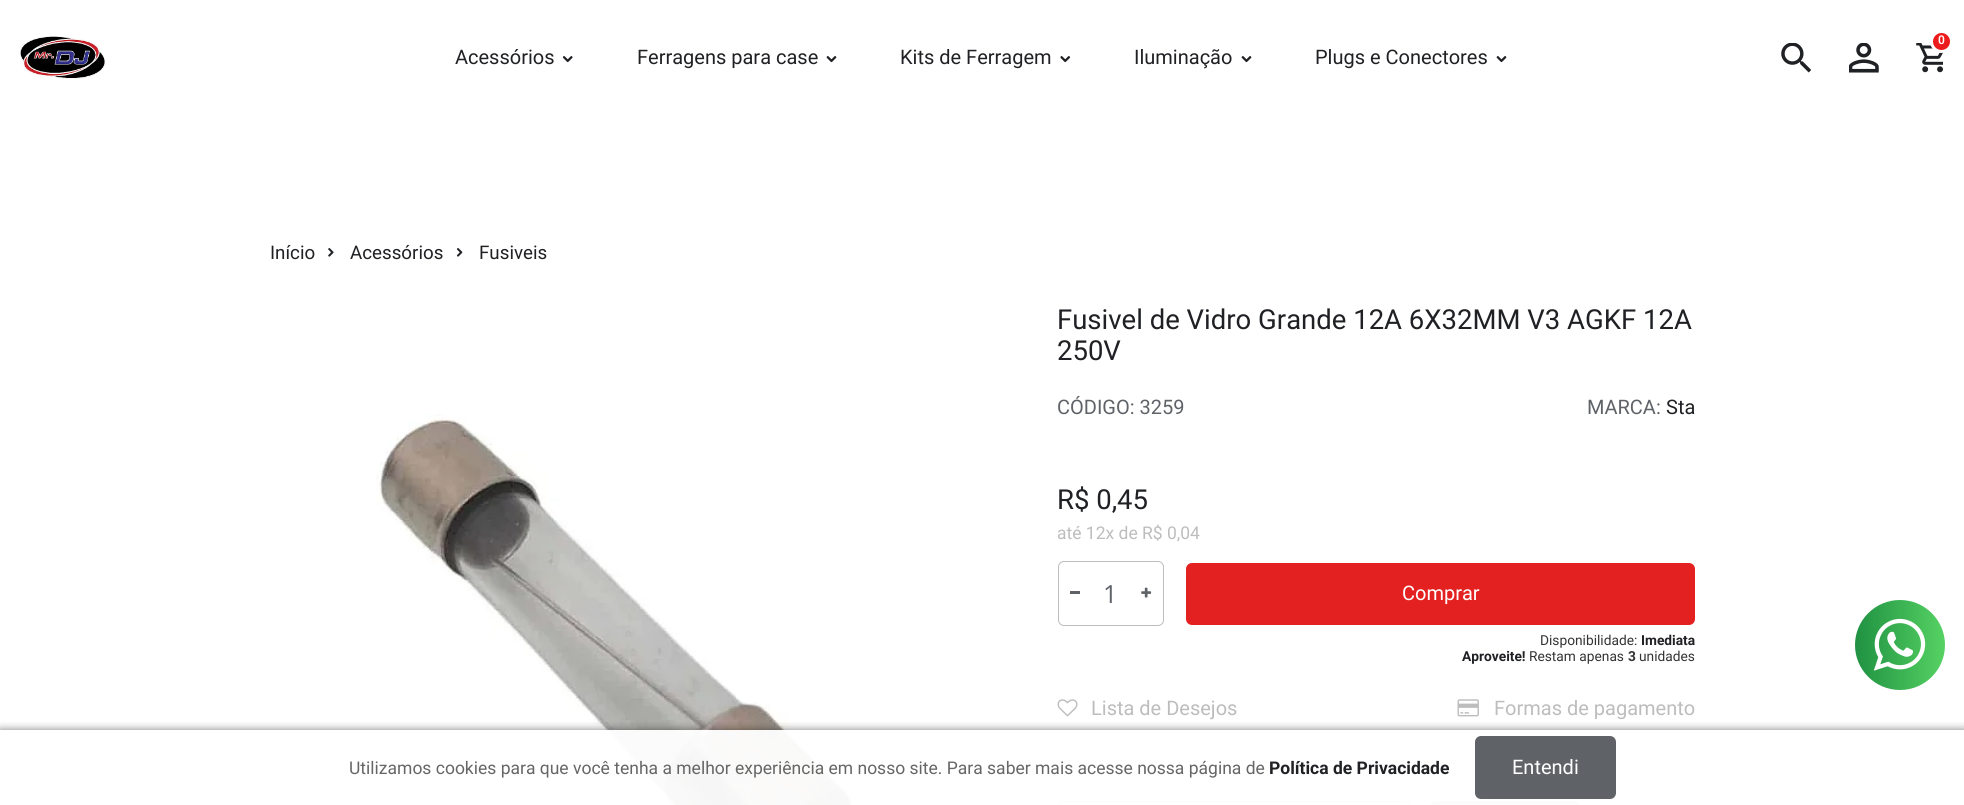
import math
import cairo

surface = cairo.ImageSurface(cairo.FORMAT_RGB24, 1964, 805)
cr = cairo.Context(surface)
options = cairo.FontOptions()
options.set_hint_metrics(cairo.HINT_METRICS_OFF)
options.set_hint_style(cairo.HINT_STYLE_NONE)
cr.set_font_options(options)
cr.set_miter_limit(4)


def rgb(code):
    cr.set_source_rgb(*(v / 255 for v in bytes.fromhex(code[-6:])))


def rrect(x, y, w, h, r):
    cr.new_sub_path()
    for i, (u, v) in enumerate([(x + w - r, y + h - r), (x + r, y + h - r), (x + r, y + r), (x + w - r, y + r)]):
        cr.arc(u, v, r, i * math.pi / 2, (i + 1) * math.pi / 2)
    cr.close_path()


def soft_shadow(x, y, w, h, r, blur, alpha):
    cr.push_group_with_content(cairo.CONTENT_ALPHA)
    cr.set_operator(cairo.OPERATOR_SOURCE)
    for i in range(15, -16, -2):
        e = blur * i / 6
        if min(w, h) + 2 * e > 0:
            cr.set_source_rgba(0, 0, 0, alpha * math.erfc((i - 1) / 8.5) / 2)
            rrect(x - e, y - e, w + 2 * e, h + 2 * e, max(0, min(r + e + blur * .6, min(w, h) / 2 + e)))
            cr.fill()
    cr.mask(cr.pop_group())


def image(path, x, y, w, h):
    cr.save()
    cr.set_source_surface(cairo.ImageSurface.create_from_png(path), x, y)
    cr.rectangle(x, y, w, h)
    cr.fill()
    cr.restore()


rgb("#ffffff")
cr.paint()
image("img/1.png", 19, 36, 87, 43)
image("img/2.png", 562, 56, 11, 7)
image("img/3.png", 826, 56, 11, 7)
image("img/4.png", 1060, 56, 11, 7)
image("img/3.png", 1241, 56, 11, 7)
image("img/3.png", 1496, 56, 11, 7)
image("img/5.png", 1916, 43, 28, 30)
rgb("#ed1c1c")
cr.arc(1941.5, 41.5, 10, 0, 2 * math.pi)
cr.fill_preserve()
rgb("#ffffff")
cr.set_line_width(3)
cr.stroke()
image("img/6.png", 1781, 43, 30, 30)
image("img/7.png", 1849, 43, 30, 30)
image("img/8.png", 328, 248, 6, 9)
image("img/9.png", 456, 248, 7, 9)
image("img/10.png", 376, 414, 477, 391)
rrect(1058.5, 561.5, 105, 64, 5.5)
rgb("#bdbdbd")
cr.set_line_width(1)
cr.stroke()
rgb("#5f6368")
cr.rectangle(1070, 591, 10, 3)
cr.fill()
image("img/11.png", 1141, 587, 11, 11)
rgb("#e42121")
rrect(1186, 563, 509, 62, 6)
cr.fill()
image("img/12.png", 1057, 699, 21, 18)
image("img/13.png", 1457, 699, 22, 18)
rrect(1058.5, 801.5, 352, 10, 5.5)
rgb("#bdbdbd")
cr.stroke()
rrect(1430.5, 801.5, 149, 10, 5.5)
cr.fill_preserve()
cr.stroke()
gradient = cairo.LinearGradient(1855, 645, 1945, 645)
gradient.add_color_stop_rgba(0, 0.125, 0.569, 0.259, 1)
gradient.add_color_stop_rgba(1, 0.337, 0.824, 0.388, 1)
cr.set_source(gradient)
cr.arc(1900, 645, 45, 0, 2 * math.pi)
cr.fill()
image("img/14.png", 1873, 618, 53, 53)
cr.save()
cr.rectangle(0, 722, 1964, 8)
cr.clip()
rgb("#000000")
soft_shadow(0, 730, 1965, 75, 0, 4.5, 0.5)
cr.restore()
cr.set_source_rgba(1, 1, 1, 0.95)
cr.rectangle(605, 730, 975, 75)
cr.fill()
rgb("#5f6368")
rrect(1475, 736, 141, 63, 6)
cr.fill()
cr.select_font_face("Roboto")
cr.set_font_size(20)
rgb("#202124")
for x, y, s in [
    (455, 64, "Acessórios"),
    (637, 64, "Ferragens para case"),
    (900, 64, "Kits de Ferragem"),
    (1134, 64, "Iluminação"),
    (1315, 64, "Plugs e Conectores"),
]:
    cr.move_to(x, y)
    cr.show_text(s)
cr.select_font_face("Roboto SemiBold")
cr.set_font_size(12)
rgb("#ffffff")
cr.move_to(1938, 44)
cr.show_text("0")
cr.select_font_face("Roboto")
cr.set_font_size(18.75)
rgb("#202124")
for x, y, s in [
    (270, 259, "Início"),
    (350, 259, "Acessórios"),
    (479, 259, "Fusiveis"),
]:
    cr.move_to(x, y)
    cr.show_text(s)
cr.set_font_size(27.5)
cr.move_to(1057, 329)
cr.show_text("Fusivel de Vidro Grande 12A 6X32MM V3 AGKF 12A")
cr.move_to(1057, 360)
cr.show_text("250V")
cr.set_font_size(20)
rgb("#5f6368")
cr.move_to(1057, 414)
cr.show_text("CÓDIGO: 3259")
cr.move_to(1587, 414)
cr.show_text("MARCA:")
rgb("#202124")
cr.move_to(1666, 414)
cr.show_text("Sta")
cr.set_font_size(27.5)
cr.move_to(1057, 509)
cr.show_text("R$ 0,45")
cr.set_font_size(17.5)
rgb("#bdbdbd")
cr.move_to(1057, 539)
cr.show_text("até 12x de R$ 0,04")
cr.select_font_face("Open Sans")
cr.set_font_size(25)
rgb("#5f6368")
cr.move_to(1103, 603)
cr.show_text("1")
cr.select_font_face("Roboto")
cr.set_font_size(20)
rgb("#ffffff")
cr.move_to(1402, 600)
cr.show_text("Comprar")
cr.set_font_size(13.75)
rgb("#343434")
cr.move_to(1540, 645)
cr.show_text("Disponibilidade:")
cr.select_font_face("Roboto", cairo.FONT_SLANT_NORMAL, cairo.FONT_WEIGHT_BOLD)
rgb("#202124")
cr.move_to(1641, 645)
cr.show_text("Imediata")
cr.move_to(1462, 661)
cr.show_text("Aproveite!")
cr.select_font_face("Roboto")
rgb("#343434")
cr.move_to(1529, 661)
cr.show_text("Restam apenas")
cr.select_font_face("Roboto", cairo.FONT_SLANT_NORMAL, cairo.FONT_WEIGHT_BOLD)
cr.move_to(1628, 661)
cr.show_text("3")
cr.select_font_face("Roboto")
cr.move_to(1639, 661)
cr.show_text("unidades")
cr.set_font_size(20)
rgb("#bdbdbd")
cr.move_to(1091, 715)
cr.show_text("Lista de Desejos")
cr.move_to(1494, 715)
cr.show_text("Formas de pagamento")
cr.set_font_size(17.5)
rgb("#666666")
cr.move_to(349, 774)
cr.show_text("Utilizamos cookies para que você tenha a melhor experiência em nosso site. Para saber mais acesse nossa página de")
cr.select_font_face("Roboto", cairo.FONT_SLANT_NORMAL, cairo.FONT_WEIGHT_BOLD)
rgb("#202124")
cr.move_to(1269, 774)
cr.show_text("Política de Privacidade")
cr.select_font_face("Roboto")
cr.set_font_size(20)
rgb("#ffffff")
cr.move_to(1512, 774)
cr.show_text("Entendi")
surface.write_to_png("page.png")
